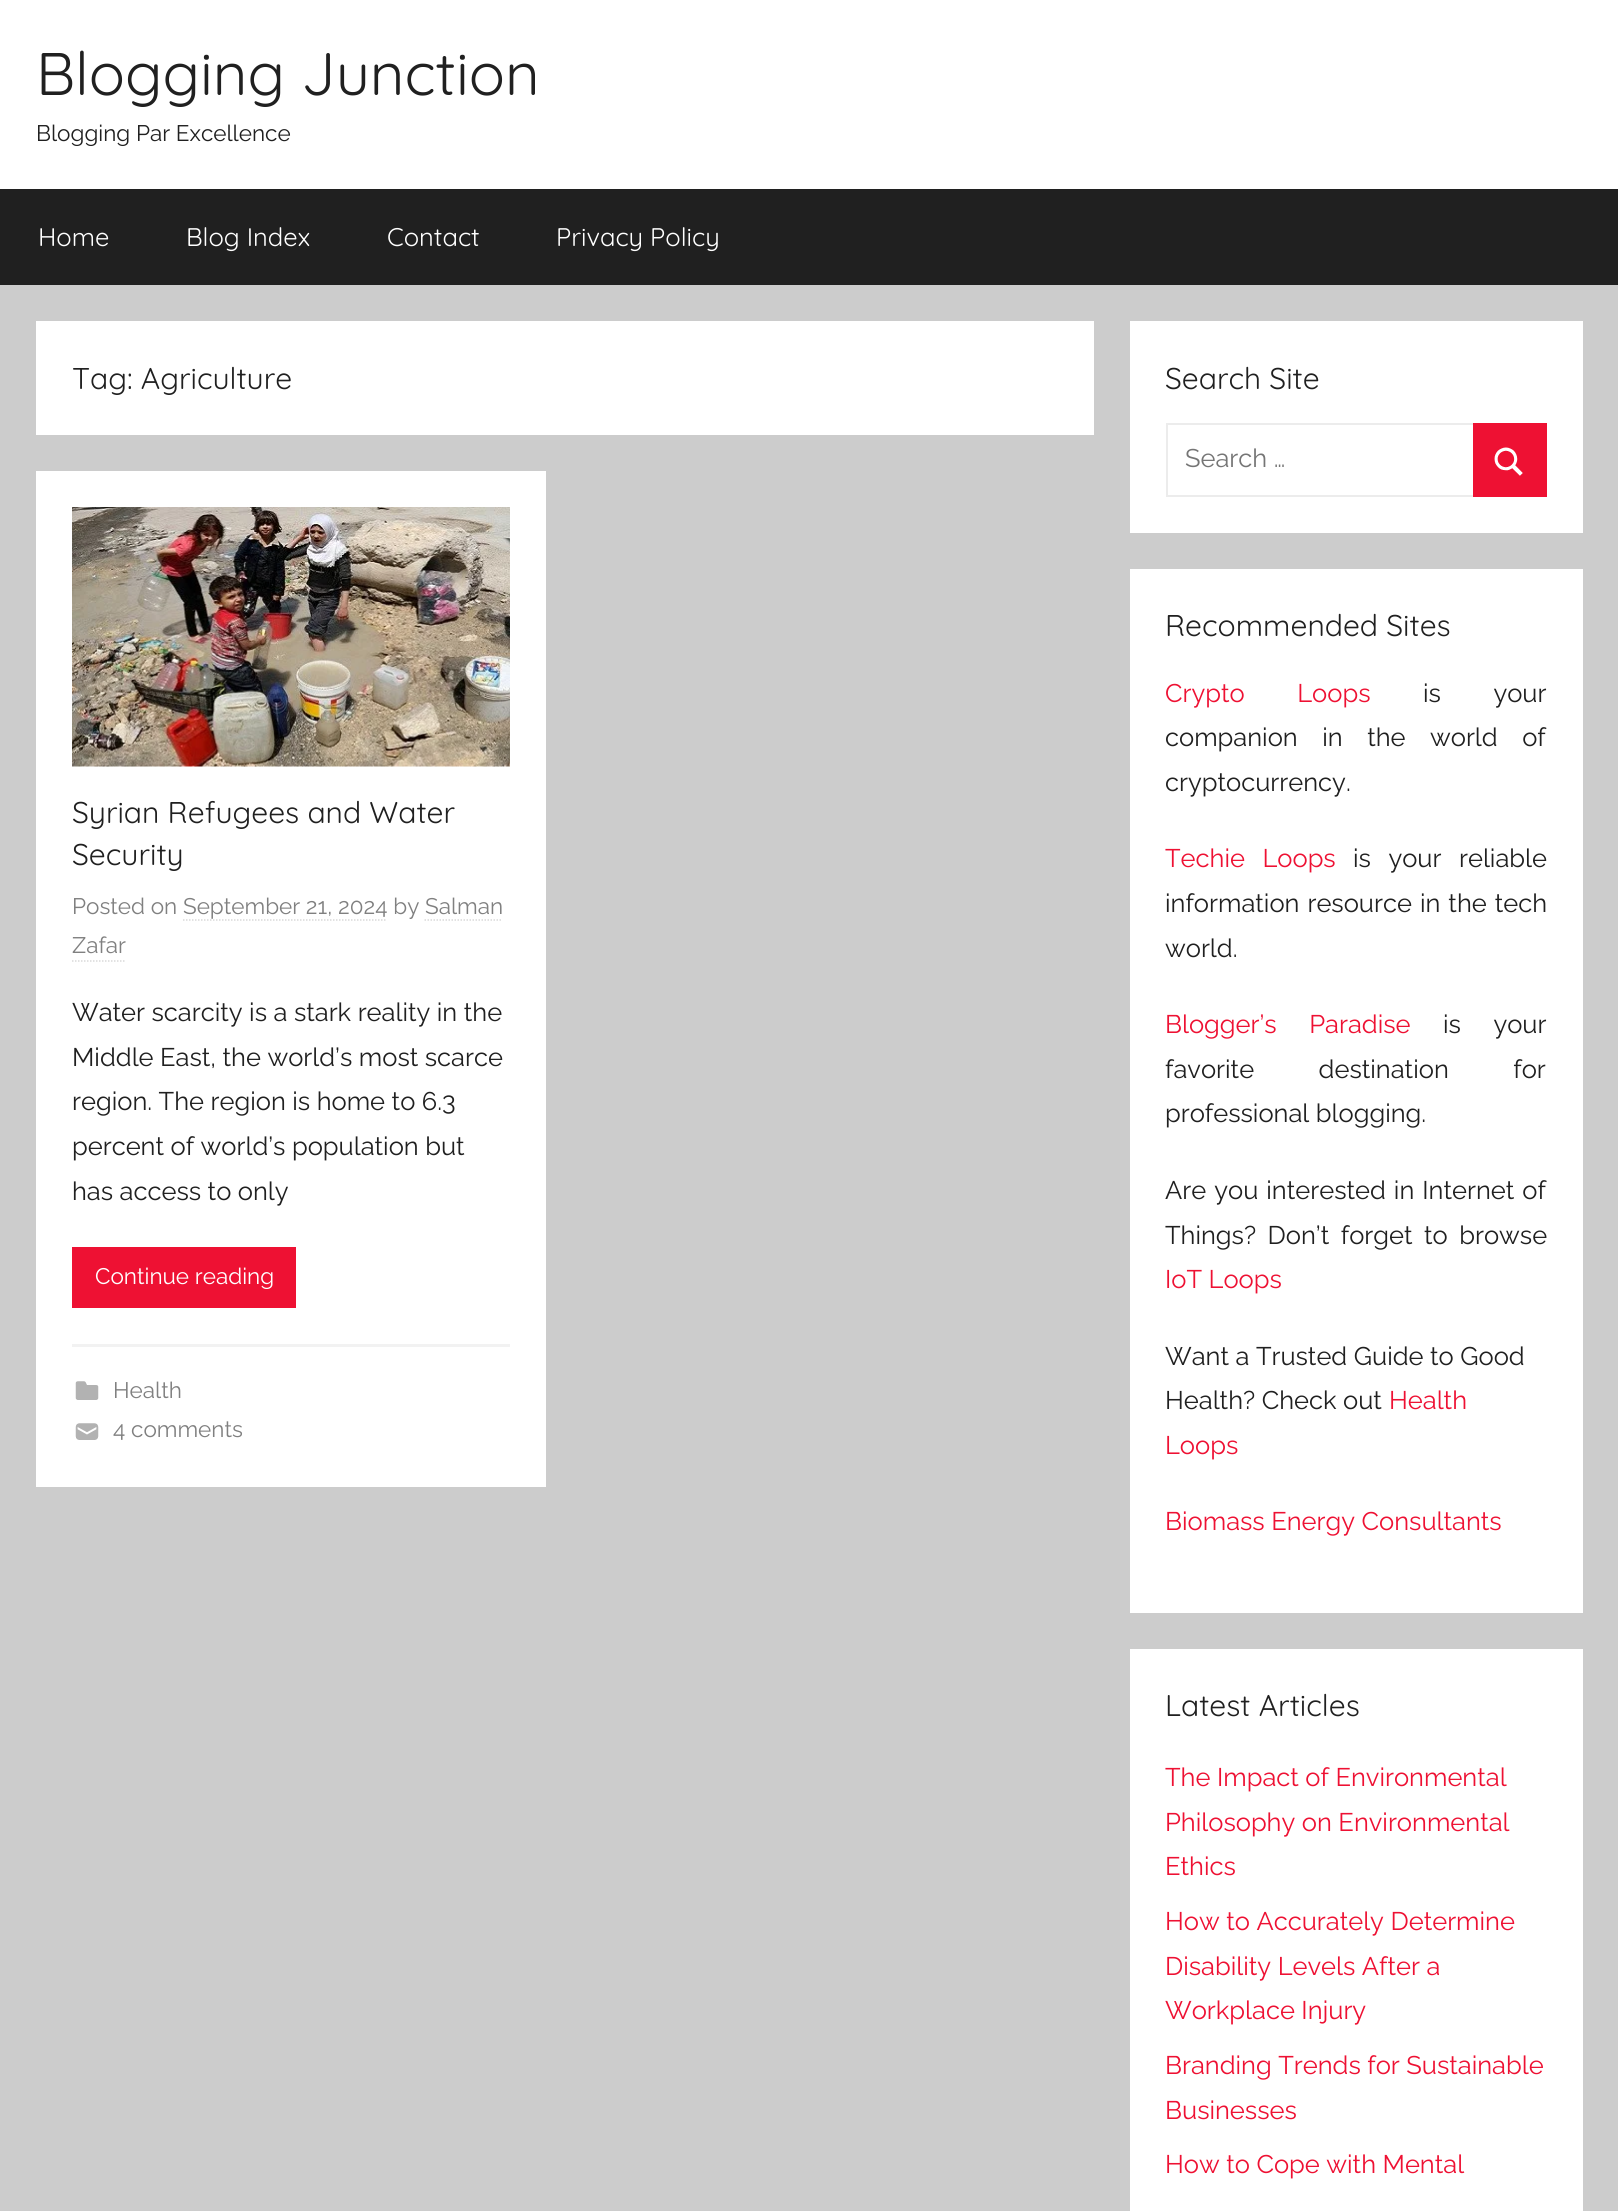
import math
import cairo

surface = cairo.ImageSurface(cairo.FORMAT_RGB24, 1618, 2211)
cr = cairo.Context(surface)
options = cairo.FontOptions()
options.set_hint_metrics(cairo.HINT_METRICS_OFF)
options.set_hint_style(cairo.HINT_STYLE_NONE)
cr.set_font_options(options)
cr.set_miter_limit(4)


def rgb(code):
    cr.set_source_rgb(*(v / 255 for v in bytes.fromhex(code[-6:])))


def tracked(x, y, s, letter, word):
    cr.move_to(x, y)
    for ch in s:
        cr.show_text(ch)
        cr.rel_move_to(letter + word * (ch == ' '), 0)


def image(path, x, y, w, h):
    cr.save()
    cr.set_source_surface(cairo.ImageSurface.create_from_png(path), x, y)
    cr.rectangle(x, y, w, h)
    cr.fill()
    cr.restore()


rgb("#cccccc")
cr.paint()
for x, y, w, h, color in [
    (0, 0, 1618, 189, "#ffffff"),
    (0, 189, 1618, 96, "#202020"),
    (36, 321, 1058, 114, "#ffffff"),
    (36, 471, 510, 1016, "#ffffff"),
]:
    rgb(color)
    cr.rectangle(x, y, w, h)
    cr.fill()
image("img/1.png", 72, 507, 438, 260)
cr.new_path()
cr.move_to(183, 920)
cr.line_to(387, 920)
rgb("#d9d9d9")
cr.set_line_width(1.5)
cr.set_dash([1.5, 1.5])
cr.stroke()
cr.new_path()
cr.move_to(424.5, 920)
cr.line_to(502.5, 920)
cr.stroke()
cr.new_path()
cr.move_to(72, 961)
cr.line_to(126, 961)
cr.stroke()
rgb("#ee1133")
cr.rectangle(72, 1247, 224, 61)
cr.fill()
rgb("#f2f2f2")
cr.rectangle(72, 1344, 438, 3)
cr.fill()
image("img/2.png", 75, 1381, 24, 19)
image("img/3.png", 75, 1423, 24, 17)
rgb("#ffffff")
cr.rectangle(1130, 321, 453, 212)
cr.fill()
cr.rectangle(1167, 424, 379, 72)
rgb("#ececec")
cr.set_line_width(2)
cr.set_dash([])
cr.stroke()
rgb("#ee1133")
cr.rectangle(1473, 423, 74, 74)
cr.fill()
image("img/4.png", 1494, 447, 29, 29)
rgb("#ffffff")
cr.rectangle(1130, 569, 453, 1044)
cr.fill()
cr.rectangle(1130, 1649, 453, 562)
cr.fill()
cr.select_font_face("Quicksand")
cr.set_font_size(60)
rgb("#202020")
cr.move_to(36, 95)
cr.show_text("Blogging Junction")
cr.select_font_face("Raleway")
cr.set_font_size(22.5)
cr.move_to(36, 141)
cr.show_text("Blogging Par Excellence")
cr.select_font_face("Quicksand")
cr.set_font_size(25.5)
rgb("#ffffff")
for x, y, s in [
    (38, 246, "Home"),
    (186, 246, "Blog Index"),
    (387, 246, "Contact"),
    (556, 246, "Privacy Policy"),
]:
    cr.move_to(x, y)
    cr.show_text(s)
cr.set_font_size(30)
rgb("#202020")
for x, y, s in [
    (72, 389, "Tag: Agriculture"),
    (72, 823, "Syrian Refugees and Water"),
    (72, 865, "Security"),
]:
    cr.move_to(x, y)
    cr.show_text(s)
cr.select_font_face("Raleway")
cr.set_font_size(22.5)
rgb("#808080")
cr.move_to(72, 914)
cr.show_text("Posted on September 21, 2024 by Salman")
cr.move_to(72, 953)
cr.show_text("Zafar")
cr.set_font_size(25.5)
rgb("#202020")
for x, y, s in [
    (72, 1021, "Water scarcity is a stark reality in the"),
    (72, 1066, "Middle East, the world’s most scarce"),
    (72, 1110, "region. The region is home to 6.3"),
    (72, 1155, "percent of world’s population but"),
    (72, 1200, "has access to only"),
]:
    cr.move_to(x, y)
    cr.show_text(s)
cr.set_font_size(22.5)
rgb("#ffffff")
cr.move_to(95, 1284)
cr.show_text("Continue reading")
rgb("#808080")
cr.move_to(113, 1398)
cr.show_text("Health")
cr.move_to(113, 1437)
cr.show_text("4 comments")
cr.select_font_face("Quicksand")
cr.set_font_size(30)
rgb("#202020")
cr.move_to(1165, 389)
cr.show_text("Search Site")
cr.select_font_face("Raleway")
cr.set_font_size(25.5)
rgb("#757575")
cr.move_to(1185, 467)
cr.show_text("Search …")
cr.select_font_face("Quicksand")
cr.set_font_size(30)
rgb("#202020")
cr.move_to(1165, 636)
cr.show_text("Recommended Sites")
cr.select_font_face("Raleway")
cr.set_font_size(25.5)
rgb("#ee1133")
tracked(1165, 702, "Crypto Loops", 0, 46)
rgb("#202020")
tracked(1423, 702, "is your", 0, 46)
tracked(1165, 746, "companion in the world of", 0, 18)
cr.move_to(1165, 791)
cr.show_text("cryptocurrency.")
rgb("#ee1133")
tracked(1165, 867, "Techie Loops", 0, 11)
rgb("#202020")
tracked(1353, 867, "is your reliable", 0, 11)
tracked(1165, 912, "information resource in the tech", 0, 1.5)
cr.move_to(1165, 957)
cr.show_text("world.")
rgb("#ee1133")
tracked(1165, 1033, "Blogger’s Paradise", 0, 26)
rgb("#202020")
tracked(1443, 1033, "is your", 0, 26)
tracked(1165, 1078, "favorite destination for", 0, 58)
cr.move_to(1165, 1122)
cr.show_text("professional blogging.")
tracked(1165, 1199, "Are you interested in Internet of", 0, 1.5)
tracked(1165, 1244, "Things? Don’t forget to browse", 0, 5)
rgb("#ee1133")
cr.move_to(1165, 1288)
cr.show_text("IoT Loops")
rgb("#202020")
cr.move_to(1165, 1365)
cr.show_text("Want a Trusted Guide to Good")
cr.move_to(1165, 1409)
cr.show_text("Health? Check out")
rgb("#ee1133")
for x, y, s in [
    (1389, 1409, "Health"),
    (1165, 1454, "Loops"),
    (1165, 1530, "Biomass Energy Consultants"),
]:
    cr.move_to(x, y)
    cr.show_text(s)
cr.select_font_face("Quicksand")
cr.set_font_size(30)
rgb("#202020")
cr.move_to(1165, 1716)
cr.show_text("Latest Articles")
cr.select_font_face("Raleway")
cr.set_font_size(25.5)
rgb("#ee1133")
for x, y, s in [
    (1165, 1786, "The Impact of Environmental"),
    (1165, 1831, "Philosophy on Environmental"),
    (1165, 1875, "Ethics"),
    (1165, 1930, "How to Accurately Determine"),
    (1165, 1975, "Disability Levels After a"),
    (1165, 2019, "Workplace Injury"),
    (1165, 2074, "Branding Trends for Sustainable"),
    (1165, 2119, "Businesses"),
    (1165, 2173, "How to Cope with Mental"),
]:
    cr.move_to(x, y)
    cr.show_text(s)
surface.write_to_png("page.png")
